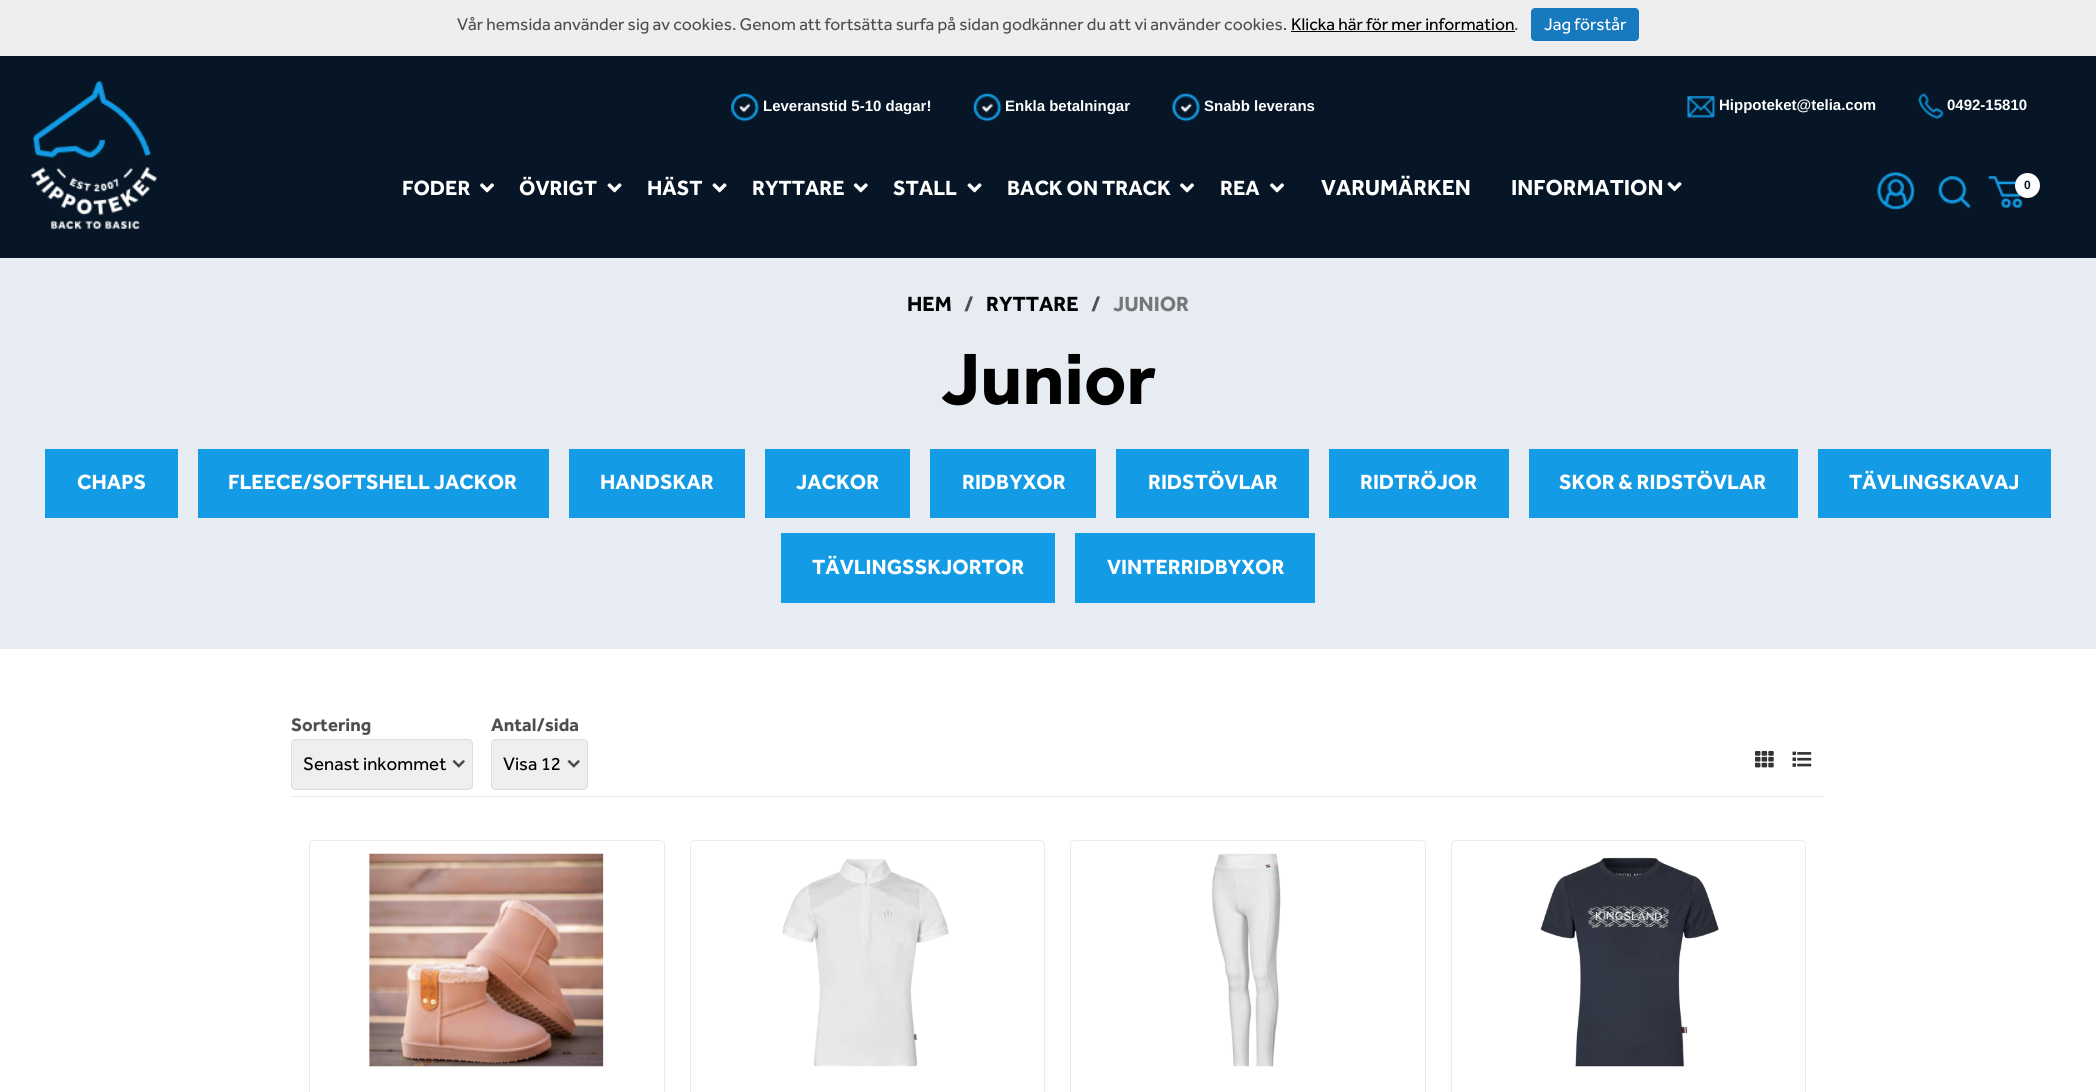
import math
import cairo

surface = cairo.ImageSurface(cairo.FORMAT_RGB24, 2096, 1092)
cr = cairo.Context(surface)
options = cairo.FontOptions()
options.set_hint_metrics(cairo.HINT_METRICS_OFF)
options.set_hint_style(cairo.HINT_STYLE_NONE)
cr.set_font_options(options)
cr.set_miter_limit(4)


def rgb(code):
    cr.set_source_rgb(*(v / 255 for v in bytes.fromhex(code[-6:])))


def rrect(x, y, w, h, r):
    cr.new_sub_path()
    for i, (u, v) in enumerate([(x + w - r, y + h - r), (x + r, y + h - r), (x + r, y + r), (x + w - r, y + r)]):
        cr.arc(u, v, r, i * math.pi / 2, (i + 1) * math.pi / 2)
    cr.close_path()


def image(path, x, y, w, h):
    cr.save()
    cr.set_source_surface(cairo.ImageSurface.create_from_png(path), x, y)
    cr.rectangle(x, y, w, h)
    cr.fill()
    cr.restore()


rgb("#061626")
cr.paint()
rgb("#eeeeee")
cr.rectangle(0, 0, 2096, 56)
cr.fill()
rgb("#000000")
cr.rectangle(1291, 31, 224, 1)
cr.fill()
rgb("#1779be")
rrect(1531, 8, 108, 33, 4)
cr.fill()
image("img/1.png", 31, 81, 127, 148)
image("img/2.png", 731, 93, 28, 29)
image("img/3.png", 973, 93, 29, 29)
image("img/4.png", 1172, 93, 28, 29)
image("img/5.png", 1687, 96, 28, 22)
image("img/6.png", 1918, 93, 26, 26)
image("img/7.png", 480, 183, 14, 10)
image("img/8.png", 607, 183, 15, 10)
image("img/8.png", 712, 183, 15, 10)
image("img/9.png", 853, 183, 15, 10)
image("img/8.png", 967, 183, 15, 10)
image("img/7.png", 1180, 183, 14, 10)
image("img/7.png", 1270, 183, 14, 10)
image("img/10.png", 1667, 182, 15, 10)
image("img/11.png", 1877, 172, 38, 38)
image("img/12.png", 1938, 176, 33, 33)
image("img/13.png", 1988, 176, 35, 32)
rgb("#ffffff")
cr.arc(2027.5, 185.5, 12.5, 0, 2 * math.pi)
cr.fill()
for x, y, w, h, color in [
    (0, 258, 2096, 391, "#e7ebf2"),
    (45, 449, 133, 69, "#139ce5"),
    (198, 449, 351, 69, "#139ce5"),
    (569, 449, 176, 69, "#139ce5"),
    (765, 449, 145, 69, "#139ce5"),
    (930, 449, 166, 69, "#139ce5"),
    (1116, 449, 193, 69, "#139ce5"),
    (1329, 449, 180, 69, "#139ce5"),
    (1529, 449, 269, 69, "#139ce5"),
    (1818, 449, 233, 69, "#139ce5"),
    (781, 533, 274, 70, "#139ce5"),
    (1075, 533, 240, 70, "#139ce5"),
    (0, 649, 2096, 443, "#ffffff"),
    (291, 796, 1533, 1, "#ecebeb"),
]:
    rgb(color)
    cr.rectangle(x, y, w, h)
    cr.fill()
rgb("#efefef")
rrect(291, 739, 182, 51, 5)
cr.fill()
image("img/14.png", 452, 760, 13, 8)
rrect(291.5, 739.5, 181, 50, 4.5)
rgb("#dddddd")
cr.set_line_width(1)
cr.stroke()
rgb("#efefef")
rrect(491, 739, 97, 51, 5)
cr.fill()
image("img/14.png", 567, 760, 13, 8)
rrect(491.5, 739.5, 96, 50, 4.5)
rgb("#dddddd")
cr.stroke()
image("img/15.png", 1755, 751, 19, 17)
image("img/16.png", 1792, 751, 20, 16)
rrect(309.5, 840.5, 355, 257, 4.5)
rgb("#ecebeb")
cr.stroke()
image("img/17.png", 369, 853, 235, 214)
rrect(690.5, 840.5, 354, 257, 4.5)
cr.stroke()
image("img/18.png", 782, 859, 167, 208)
rrect(1070.5, 840.5, 355, 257, 4.5)
cr.stroke()
image("img/19.png", 1211, 853, 70, 214)
rrect(1451.5, 840.5, 354, 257, 4.5)
cr.stroke()
image("img/20.png", 1540, 857, 179, 210)
cr.select_font_face("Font")
cr.set_font_size(17.5)
rgb("#4f4f4f")
cr.move_to(457, 30)
cr.show_text("Vår hemsida använder sig av cookies. Genom att fortsätta surfa på sidan godkänner du att vi använder cookies.")
rgb("#000000")
cr.move_to(1291, 30)
cr.show_text("Klicka här för mer information")
rgb("#4f4f4f")
cr.move_to(1514, 30)
cr.show_text(".")
rgb("#ffffff")
cr.move_to(1544, 30)
cr.show_text("Jag förstår")
cr.select_font_face("Liberation Sans", cairo.FONT_SLANT_NORMAL, cairo.FONT_WEIGHT_BOLD)
cr.set_font_size(15)
for x, y, s in [
    (763, 111, "Leveranstid 5-10 dagar!"),
    (1005, 111, "Enkla betalningar"),
    (1204, 111, "Snabb leverans"),
    (1719, 110, "Hippoteket@telia.com"),
    (1947, 110, "0492-15810"),
]:
    cr.move_to(x, y)
    cr.show_text(s)
cr.select_font_face("Font", cairo.FONT_SLANT_NORMAL, cairo.FONT_WEIGHT_BOLD)
cr.set_font_size(21.25)
for x, y, s in [
    (402, 195, "FODER"),
    (519, 195, "ÖVRIGT"),
    (647, 195, "HÄST"),
    (752, 195, "RYTTARE"),
    (893, 195, "STALL"),
    (1007, 195, "BACK ON TRACK"),
    (1220, 195, "REA"),
]:
    cr.move_to(x, y)
    cr.show_text(s)
cr.set_font_size(22.5)
cr.move_to(1321, 195)
cr.show_text("VARUMÄRKEN")
cr.move_to(1511, 195)
cr.show_text("INFORMATION")
cr.select_font_face("Liberation Sans", cairo.FONT_SLANT_NORMAL, cairo.FONT_WEIGHT_BOLD)
cr.set_font_size(12)
rgb("#061626")
cr.move_to(2024, 189)
cr.show_text("0")
cr.select_font_face("Font", cairo.FONT_SLANT_NORMAL, cairo.FONT_WEIGHT_BOLD)
cr.set_font_size(21.25)
rgb("#000000")
cr.move_to(907, 311)
cr.show_text("HEM")
rgb("#4f4f4f")
cr.move_to(964, 311)
cr.show_text("/")
rgb("#000000")
cr.move_to(986, 311)
cr.show_text("RYTTARE")
rgb("#4f4f4f")
cr.move_to(1091, 311)
cr.show_text("/")
rgb("#747679")
cr.move_to(1113, 311)
cr.show_text("JUNIOR")
cr.set_font_size(75)
rgb("#000000")
cr.move_to(941, 404)
cr.show_text("Junior")
cr.set_font_size(21.25)
rgb("#ffffff")
for x, y, s in [
    (77, 489, "CHAPS"),
    (228, 489, "FLEECE/SOFTSHELL JACKOR"),
    (600, 489, "HANDSKAR"),
    (796, 489, "JACKOR"),
    (962, 489, "RIDBYXOR"),
    (1148, 489, "RIDSTÖVLAR"),
    (1360, 489, "RIDTRÖJOR"),
    (1559, 489, "SKOR & RIDSTÖVLAR"),
    (1849, 489, "TÄVLINGSKAVAJ"),
    (812, 574, "TÄVLINGSSKJORTOR"),
    (1107, 574, "VINTERRIDBYXOR"),
]:
    cr.move_to(x, y)
    cr.show_text(s)
cr.set_font_size(18.75)
rgb("#4f4f4f")
cr.move_to(291, 731)
cr.show_text("Sortering")
cr.select_font_face("Font")
rgb("#000000")
cr.move_to(303, 770)
cr.show_text("Senast inkommet")
cr.select_font_face("Font", cairo.FONT_SLANT_NORMAL, cairo.FONT_WEIGHT_BOLD)
rgb("#4f4f4f")
cr.move_to(491, 731)
cr.show_text("Antal/sida")
cr.select_font_face("Font")
rgb("#000000")
cr.move_to(503, 770)
cr.show_text("Visa 12")
surface.write_to_png("page.png")
